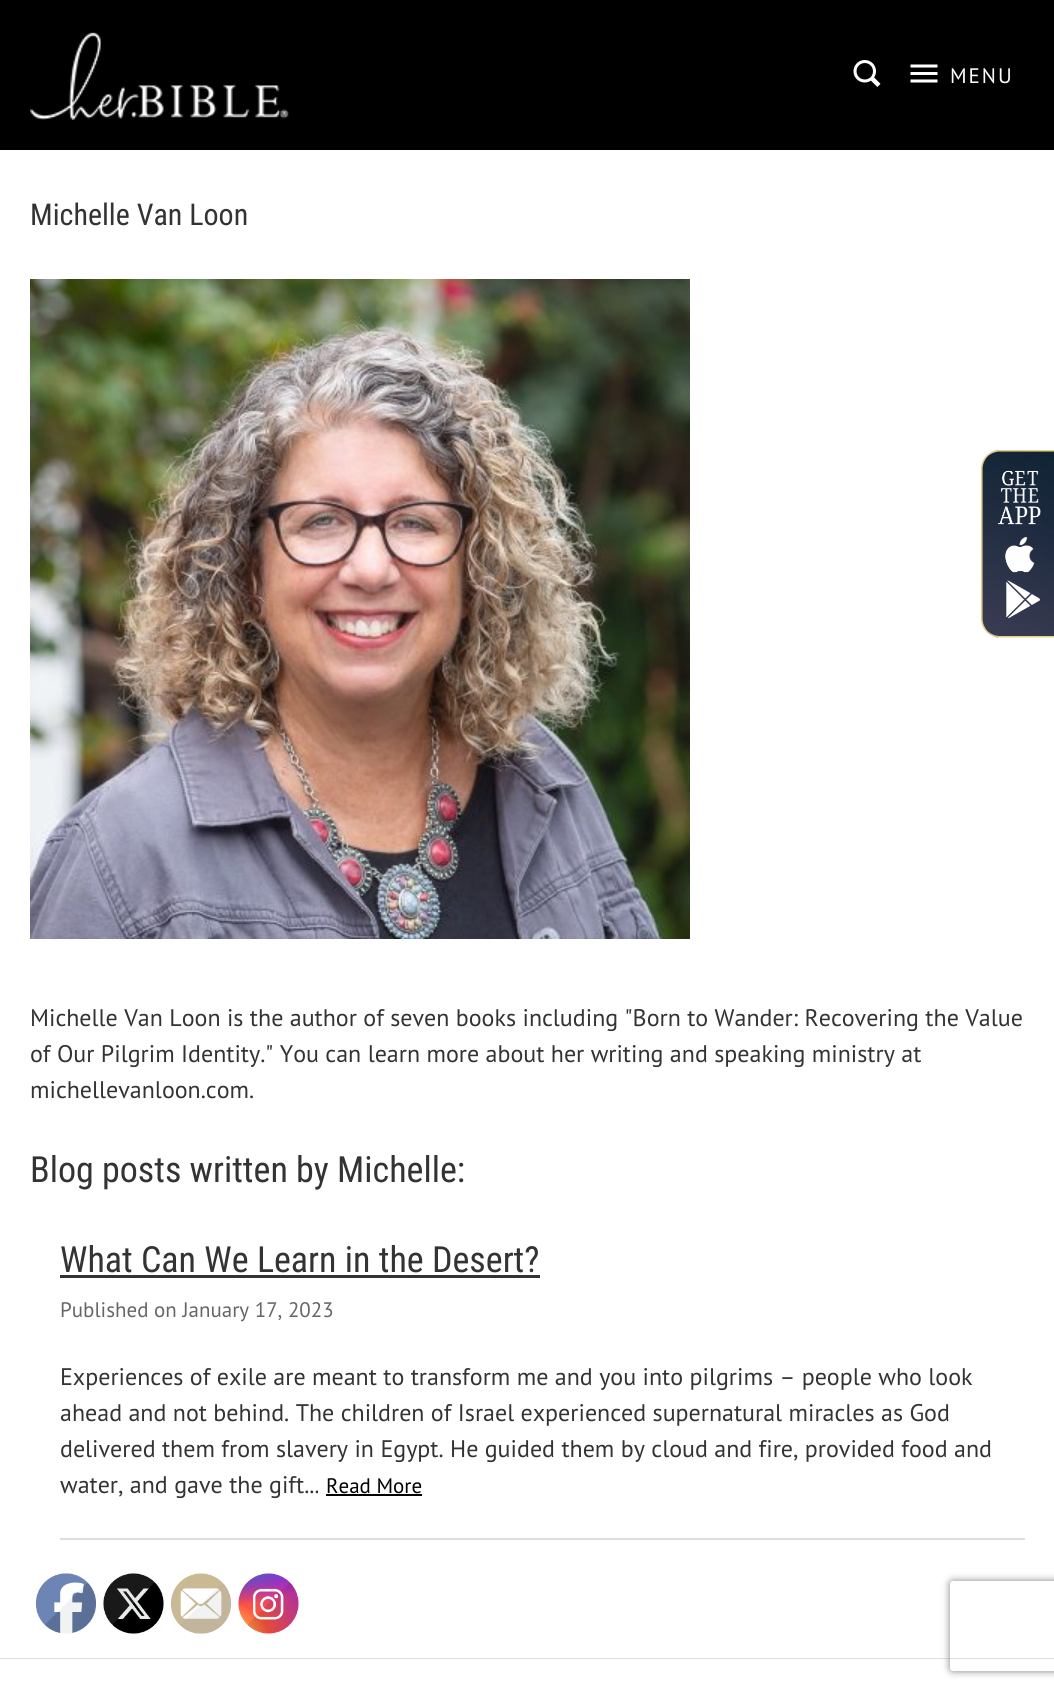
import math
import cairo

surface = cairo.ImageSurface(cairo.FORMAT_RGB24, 1054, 1692)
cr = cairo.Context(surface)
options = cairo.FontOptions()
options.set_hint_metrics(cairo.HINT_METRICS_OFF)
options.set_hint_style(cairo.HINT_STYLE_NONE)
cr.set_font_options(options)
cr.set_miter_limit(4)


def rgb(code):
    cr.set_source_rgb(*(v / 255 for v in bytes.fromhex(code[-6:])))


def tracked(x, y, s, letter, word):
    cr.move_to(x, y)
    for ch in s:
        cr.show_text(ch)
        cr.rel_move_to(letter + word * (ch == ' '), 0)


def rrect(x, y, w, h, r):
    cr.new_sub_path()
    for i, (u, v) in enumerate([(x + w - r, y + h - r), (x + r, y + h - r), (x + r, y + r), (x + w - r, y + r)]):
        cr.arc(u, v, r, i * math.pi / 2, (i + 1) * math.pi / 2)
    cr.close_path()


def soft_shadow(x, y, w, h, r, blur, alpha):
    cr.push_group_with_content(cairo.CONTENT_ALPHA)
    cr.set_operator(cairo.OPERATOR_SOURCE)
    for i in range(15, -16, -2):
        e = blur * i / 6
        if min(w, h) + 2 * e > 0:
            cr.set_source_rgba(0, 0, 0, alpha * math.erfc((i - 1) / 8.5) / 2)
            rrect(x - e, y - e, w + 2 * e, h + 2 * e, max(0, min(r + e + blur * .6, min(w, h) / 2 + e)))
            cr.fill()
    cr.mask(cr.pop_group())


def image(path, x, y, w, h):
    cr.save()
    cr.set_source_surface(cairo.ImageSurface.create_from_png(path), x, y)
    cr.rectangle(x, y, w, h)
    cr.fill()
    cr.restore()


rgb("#000000")
cr.paint()
image("img/1.png", 30, 32, 259, 88)
image("img/2.png", 853, 60, 28, 27)
image("img/3.png", 910, 64, 28, 19)
rgb("#ffffff")
cr.rectangle(0, 150, 1054, 1508)
cr.fill()
rgb("#dddddd")
cr.rectangle(0, 1658, 1054, 1)
cr.fill()
image("img/4.png", 30, 279, 660, 660)
for x, y, w, h, color in [
    (60, 1275, 480, 3, "#333333"),
    (326, 1494, 96, 2, "#000000"),
    (60, 1538, 965, 2, "#dddddd"),
]:
    rgb(color)
    cr.rectangle(x, y, w, h)
    cr.fill()
image("img/5.png", 36, 1573, 60, 61)
image("img/6.png", 103, 1573, 61, 61)
image("img/7.png", 171, 1573, 60, 61)
image("img/8.png", 238, 1573, 61, 61)
rgb("#ffffff")
cr.rectangle(0, 1659, 1054, 33)
cr.fill()
image("img/9.png", 981, 450, 73, 188)
cr.save()
cr.set_fill_rule(cairo.FILL_RULE_EVEN_ODD)
cr.new_path()
cr.move_to(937, 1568)
cr.line_to(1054, 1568)
cr.line_to(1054, 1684)
cr.line_to(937, 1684)
cr.close_path()
cr.move_to(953, 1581)
cr.line_to(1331, 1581)
cr.curve_to(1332.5, 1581, 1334, 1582.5, 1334, 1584)
cr.line_to(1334, 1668)
cr.curve_to(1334, 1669.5, 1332.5, 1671, 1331, 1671)
cr.line_to(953, 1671)
cr.curve_to(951.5, 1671, 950, 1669.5, 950, 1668)
cr.line_to(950, 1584)
cr.curve_to(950, 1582.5, 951.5, 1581, 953, 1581)
cr.close_path()
cr.clip()
rgb("#808080")
soft_shadow(950, 1581, 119, 90, 3, 4, 1)
cr.restore()
cr.select_font_face("PT Sans")
cr.set_font_size(21)
tracked(950, 83, "MENU", 2, 0)
cr.select_font_face("Roboto Condensed")
cr.set_font_size(30)
rgb("#333333")
cr.move_to(30, 225)
cr.show_text("Michelle Van Loon")
cr.select_font_face("PT Sans")
cr.set_font_size(24)
for x, y, s in [
    (30, 1026, "Michelle Van Loon is the author of seven books including \"Born to Wander: Recovering the Value"),
    (30, 1062, "of Our Pilgrim Identity.\" You can learn more about her writing and speaking ministry at"),
    (30, 1098, "michellevanloon.com."),
]:
    cr.move_to(x, y)
    cr.show_text(s)
cr.select_font_face("Roboto Condensed")
cr.set_font_size(36)
cr.move_to(30, 1182)
cr.show_text("Blog posts written by Michelle:")
cr.move_to(60, 1272)
cr.show_text("What Can We Learn in the Desert?")
cr.select_font_face("PT Sans")
cr.set_font_size(21)
rgb("#666666")
cr.move_to(60, 1317)
cr.show_text("Published on January 17, 2023")
cr.set_font_size(24)
rgb("#333333")
for x, y, s in [
    (60, 1385, "Experiences of exile are meant to transform me and you into pilgrims – people who look"),
    (60, 1421, "ahead and not behind. The children of Israel experienced supernatural miracles as God"),
    (60, 1457, "delivered them from slavery in Egypt. He guided them by cloud and fire, provided food and"),
    (60, 1493, "water, and gave the gift..."),
]:
    cr.move_to(x, y)
    cr.show_text(s)
cr.set_font_size(21)
rgb("#000000")
cr.move_to(326, 1493)
cr.show_text("Read More")
surface.write_to_png("page.png")
